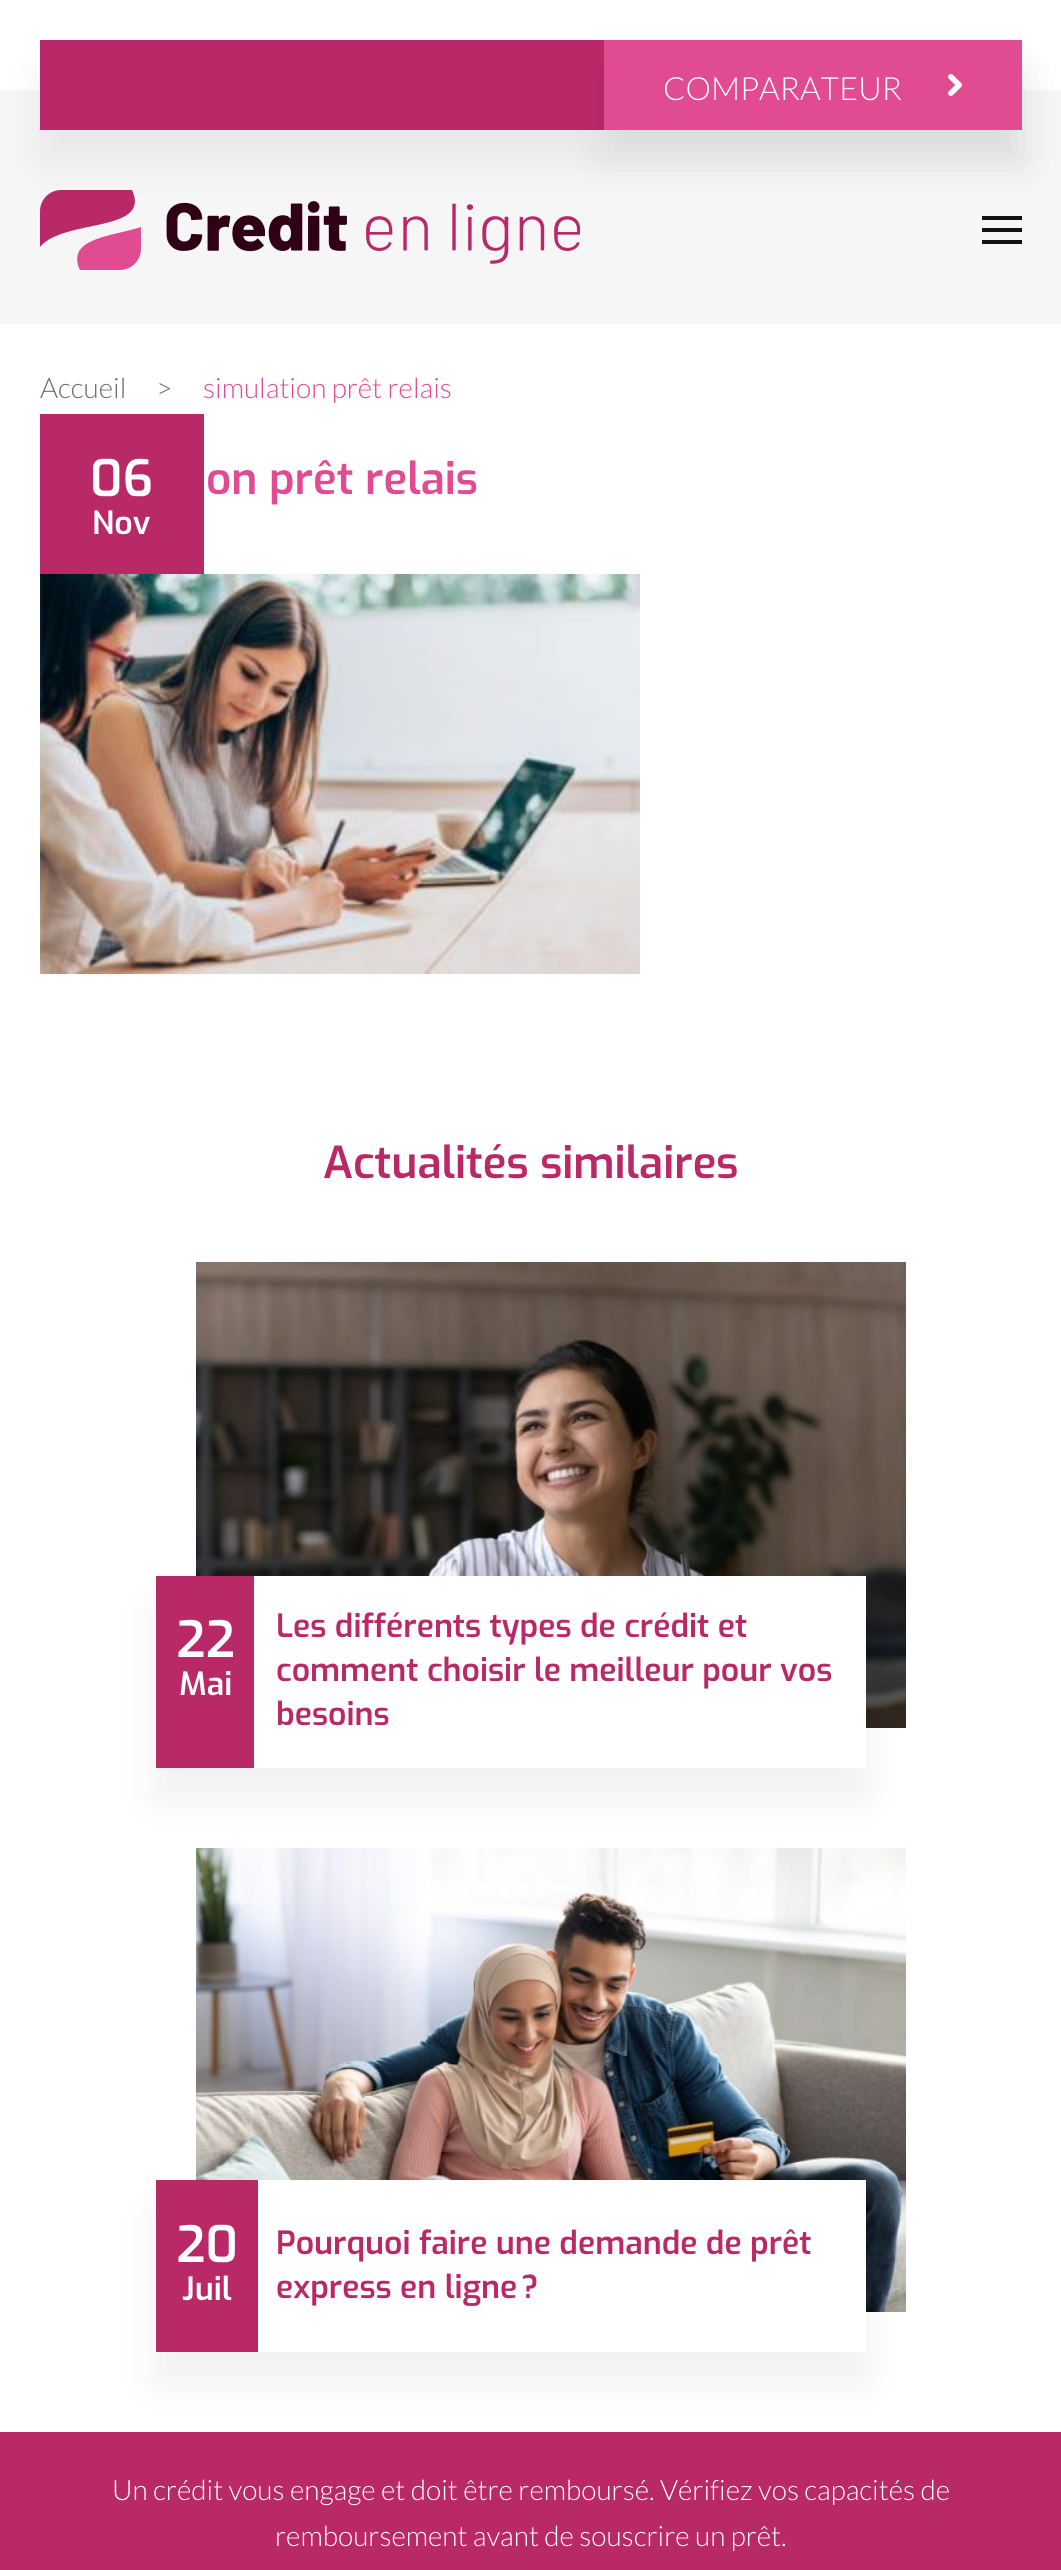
import math
import cairo

surface = cairo.ImageSurface(cairo.FORMAT_RGB24, 1061, 2570)
cr = cairo.Context(surface)
options = cairo.FontOptions()
options.set_hint_metrics(cairo.HINT_METRICS_OFF)
options.set_hint_style(cairo.HINT_STYLE_NONE)
cr.set_font_options(options)
cr.set_miter_limit(4)


def rgb(code):
    cr.set_source_rgb(*(v / 255 for v in bytes.fromhex(code[-6:])))


def rrect(x, y, w, h, r):
    cr.new_sub_path()
    for i, (u, v) in enumerate([(x + w - r, y + h - r), (x + r, y + h - r), (x + r, y + r), (x + w - r, y + r)]):
        cr.arc(u, v, r, i * math.pi / 2, (i + 1) * math.pi / 2)
    cr.close_path()


def soft_shadow(x, y, w, h, r, blur, alpha):
    cr.push_group_with_content(cairo.CONTENT_ALPHA)
    cr.set_operator(cairo.OPERATOR_SOURCE)
    for i in range(15, -16, -2):
        e = blur * i / 6
        if min(w, h) + 2 * e > 0:
            cr.set_source_rgba(0, 0, 0, alpha * math.erfc((i - 1) / 8.5) / 2)
            rrect(x - e, y - e, w + 2 * e, h + 2 * e, max(0, min(r + e + blur * .6, min(w, h) / 2 + e)))
            cr.fill()
    cr.mask(cr.pop_group())


def image(path, x, y, w, h):
    cr.save()
    cr.set_source_surface(cairo.ImageSurface.create_from_png(path), x, y)
    cr.rectangle(x, y, w, h)
    cr.fill()
    cr.restore()


rgb("#ffffff")
cr.paint()
rgb("#f6f6f6")
cr.rectangle(40, 130, 982, 194)
cr.fill()
cr.rectangle(0, 90, 40, 234)
cr.fill()
image("img/2.png", 40, 190, 540, 80)
cr.rectangle(1022, 90, 39, 234)
cr.fill()
rgb("#010101")
soft_shadow(40, 72, 982, 90, 0, 21, 0.06)
rgb("#ba2967")
cr.rectangle(40, 40, 564, 90)
cr.fill()
rgb("#010101")
soft_shadow(604, 72, 418, 90, 0, 21, 0.06)
rgb("#e04b92")
cr.rectangle(604, 40, 418, 90)
cr.fill()
image("img/1.png", 948, 74, 14, 22)
for x, y, w, h, color in [
    (982, 228, 40, 4, "#111111"),
    (982, 216, 40, 4, "#111111"),
    (982, 240, 40, 4, "#111111"),
    (40, 414, 164, 160, "#ba2967"),
]:
    rgb(color)
    cr.rectangle(x, y, w, h)
    cr.fill()
image("img/3.png", 40, 574, 600, 400)
image("img/4.png", 196, 1262, 710, 466)
rgb("#010101")
soft_shadow(156, 1608, 710, 192, 0, 21, 0.06)
rgb("#ffffff")
cr.rectangle(254, 1576, 612, 192)
cr.fill()
rgb("#ba2967")
cr.rectangle(156, 1576, 98, 192)
cr.fill()
image("img/5.png", 196, 1848, 710, 464)
cr.rectangle(0, 2432, 1061, 138)
cr.fill()
rgb("#010101")
soft_shadow(156, 2212, 710, 172, 0, 21, 0.06)
rgb("#ffffff")
cr.rectangle(258, 2180, 608, 172)
cr.fill()
rgb("#ba2967")
cr.rectangle(156, 2180, 102, 172)
cr.fill()
cr.select_font_face("Lato Light")
cr.set_font_size(32)
rgb("#ffffff")
cr.move_to(663, 100)
cr.show_text("COMPARATEUR")
cr.set_font_size(28)
rgb("#6d6d6d")
cr.move_to(40, 398)
cr.show_text("Accueil")
cr.move_to(156, 398)
cr.show_text(">")
rgb("#e04b92")
cr.move_to(203, 398)
cr.show_text("simulation prêt relais")
cr.select_font_face("Exo SemiBold")
cr.set_font_size(50)
rgb("#ffffff")
cr.move_to(90, 496)
cr.show_text("06")
cr.set_font_size(32)
cr.move_to(92, 534)
cr.show_text("Nov")
cr.set_font_size(44)
rgb("#e04b92")
cr.move_to(206, 494)
cr.show_text("on prêt relais")
rgb("#ba2967")
cr.move_to(323, 1178)
cr.show_text("Actualités similaires")
cr.set_font_size(50)
rgb("#ffffff")
cr.move_to(176, 1657)
cr.show_text("22")
cr.set_font_size(32)
cr.move_to(179, 1695)
cr.show_text("Mai")
rgb("#ba2967")
for x, y, s in [
    (276, 1637, "Les différents types de crédit et"),
    (276, 1681, "comment choisir le meilleur pour vos"),
    (276, 1725, "besoins"),
]:
    cr.move_to(x, y)
    cr.show_text(s)
cr.set_font_size(50)
rgb("#ffffff")
cr.move_to(176, 2262)
cr.show_text("20")
cr.set_font_size(32)
cr.move_to(182, 2300)
cr.show_text("Juil")
rgb("#ba2967")
cr.move_to(276, 2254)
cr.show_text("Pourquoi faire une demande de prêt")
cr.move_to(276, 2298)
cr.show_text("express en ligne ?")
cr.select_font_face("Lato Light")
cr.set_font_size(28)
rgb("#ffffff")
cr.move_to(112, 2500)
cr.show_text("Un crédit vous engage et doit être remboursé. Vérifiez vos capacités de")
cr.move_to(275, 2546)
cr.show_text("remboursement avant de souscrire un prêt.")
surface.write_to_png("page.png")
